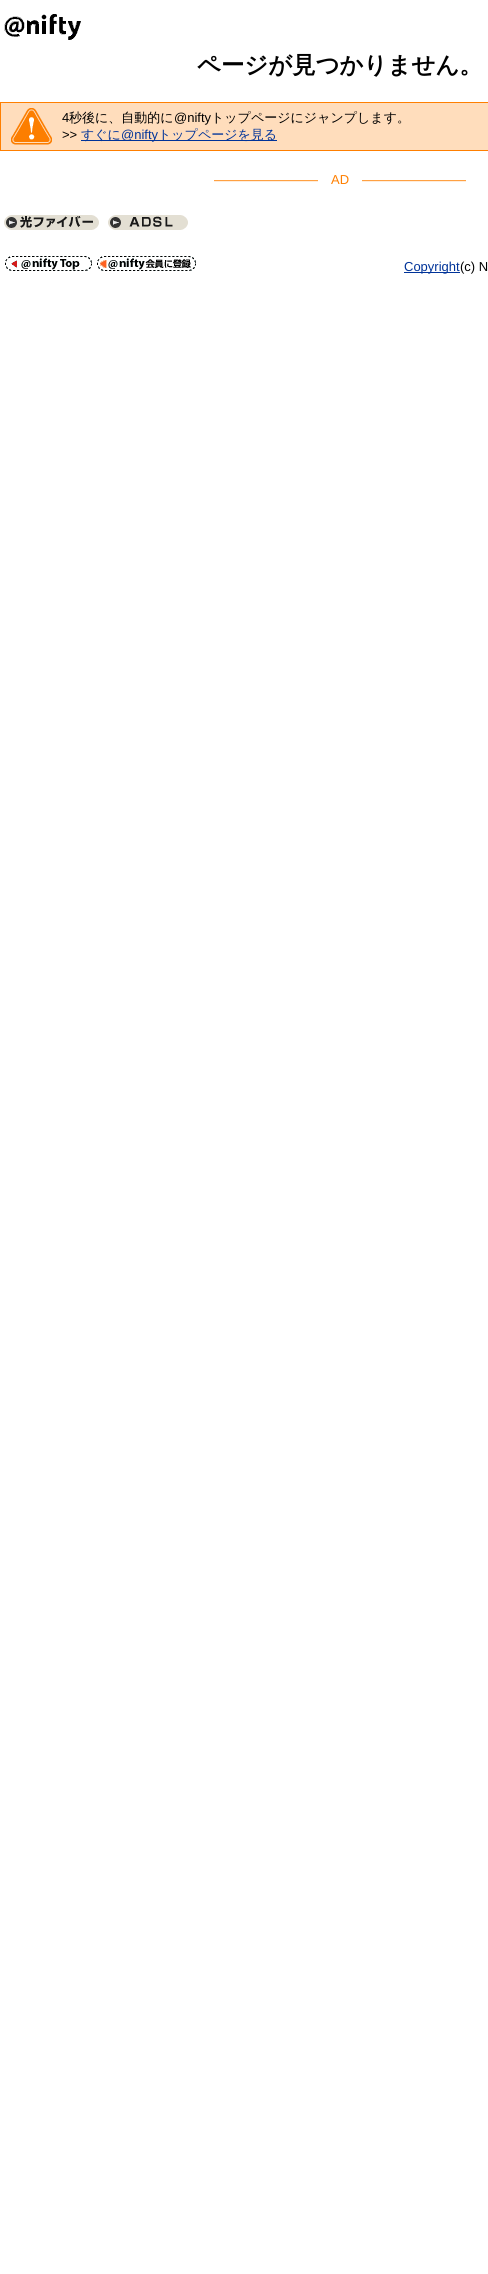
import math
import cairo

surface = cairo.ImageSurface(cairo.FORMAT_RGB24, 488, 2274)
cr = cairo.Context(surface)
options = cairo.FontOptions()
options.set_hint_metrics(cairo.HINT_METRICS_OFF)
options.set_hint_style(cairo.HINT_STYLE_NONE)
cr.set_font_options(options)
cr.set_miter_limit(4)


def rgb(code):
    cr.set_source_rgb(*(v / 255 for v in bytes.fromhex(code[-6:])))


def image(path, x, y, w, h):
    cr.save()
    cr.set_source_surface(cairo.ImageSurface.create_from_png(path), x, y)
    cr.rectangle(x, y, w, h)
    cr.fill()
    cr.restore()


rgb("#ffffff")
cr.paint()
image("img/1.png", 4, 14, 77, 26)
rgb("#ffddbc")
cr.rectangle(0.5, 102.5, 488, 48)
cr.fill_preserve()
rgb("#ff7f00")
cr.set_line_width(1)
cr.stroke()
image("img/2.png", 11, 108, 41, 37)
rgb("#003399")
cr.rectangle(81, 140, 196, 1)
cr.fill()
image("img/3.png", 4, 215, 95, 15)
image("img/4.png", 108, 215, 80, 15)
image("img/5.png", 5, 256, 87, 15)
image("img/6.png", 97, 256, 99, 15)
cr.rectangle(404, 272, 56, 1)
cr.fill()
cr.select_font_face("WenQuanYi Zen Hei", cairo.FONT_SLANT_NORMAL, cairo.FONT_WEIGHT_BOLD)
cr.set_font_size(23.4)
rgb("#000000")
cr.move_to(197, 73)
cr.show_text("ページが見つかりません。")
cr.select_font_face("Liberation Sans")
cr.set_font_size(13)
cr.move_to(62, 122)
cr.show_text("4")
cr.select_font_face("WenQuanYi Zen Hei Medium")
cr.move_to(69, 122)
cr.show_text("秒後に、自動的に")
cr.select_font_face("Liberation Sans")
cr.move_to(174, 122)
cr.show_text("@nifty")
cr.select_font_face("WenQuanYi Zen Hei Medium")
cr.move_to(211, 122)
cr.show_text("トップページにジャンプします。")
cr.select_font_face("Liberation Sans")
cr.move_to(62, 139)
cr.show_text(">>")
cr.select_font_face("WenQuanYi Zen Hei Medium")
rgb("#003399")
cr.move_to(81, 139)
cr.show_text("すぐに")
cr.select_font_face("Liberation Sans")
cr.move_to(121, 139)
cr.show_text("@nifty")
cr.select_font_face("WenQuanYi Zen Hei Medium")
cr.move_to(158, 139)
cr.show_text("トップページを見る")
cr.select_font_face("Liberation Sans")
rgb("#ff7f00")
for x, y, s in [
    (214, 184, "――――――――"),
    (331, 184, "AD"),
    (362, 184, "――――――――"),
]:
    cr.move_to(x, y)
    cr.show_text(s)
rgb("#003399")
cr.move_to(404, 271)
cr.show_text("Copyright")
rgb("#000000")
cr.move_to(460, 271)
cr.show_text("(c) N")
surface.write_to_png("page.png")
